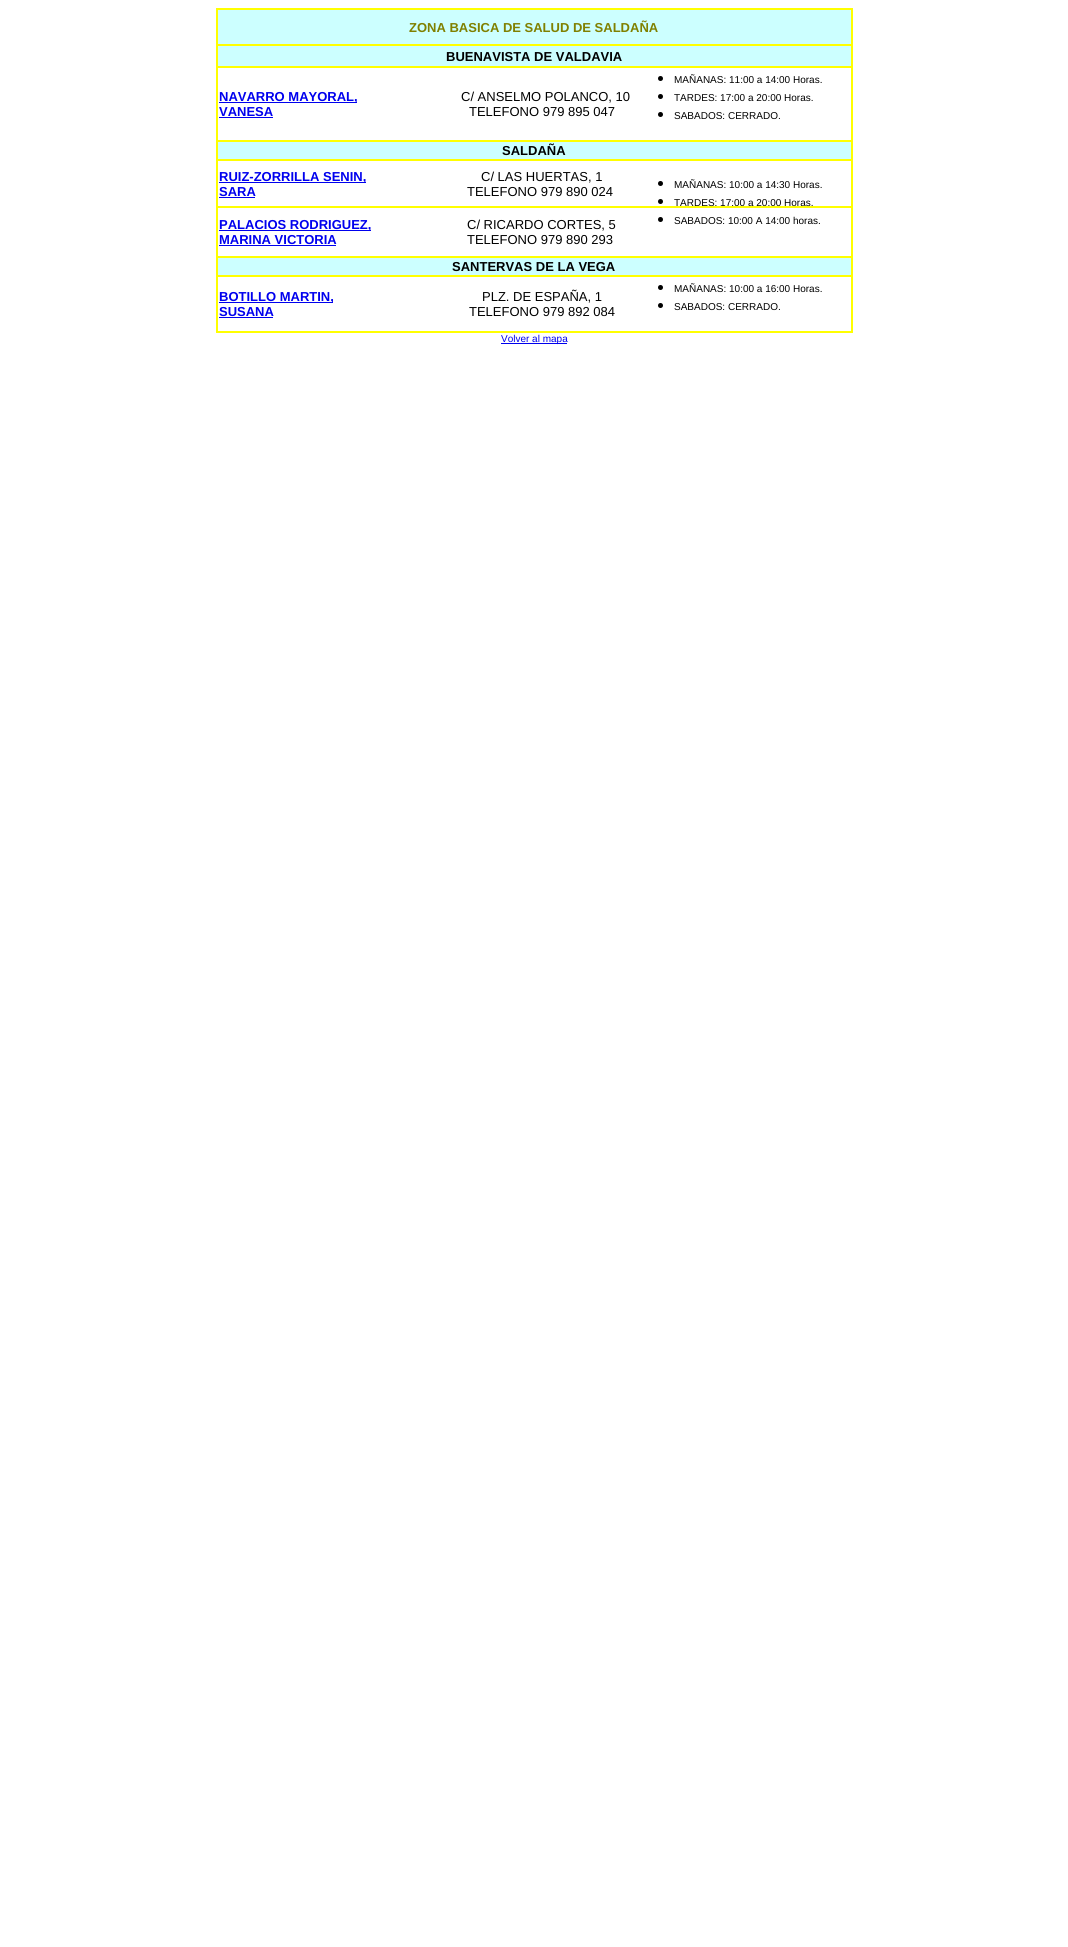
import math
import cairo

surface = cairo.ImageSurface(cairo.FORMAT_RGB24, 1068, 1947)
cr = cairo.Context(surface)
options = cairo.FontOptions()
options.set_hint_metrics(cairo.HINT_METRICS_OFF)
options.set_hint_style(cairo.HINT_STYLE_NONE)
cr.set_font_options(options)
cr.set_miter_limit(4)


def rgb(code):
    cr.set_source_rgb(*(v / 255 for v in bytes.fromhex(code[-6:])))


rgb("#ffffff")
cr.paint()
for x, y, w, h, color in [
    (216, 8, 637, 325, "#ffff00"),
    (218, 10, 633, 34, "#ccffff"),
    (218, 46, 633, 20, "#ccffff"),
    (218, 68, 633, 72, "#ffffff"),
    (219, 102, 138, 1, "#0000ee"),
    (219, 117, 54, 1, "#0000ee"),
]:
    rgb(color)
    cr.rectangle(x, y, w, h)
    cr.fill()
rgb("#000000")
cr.arc(660.5, 78.5, 2.5, 0, 2 * math.pi)
cr.fill()
cr.arc(660.5, 96.5, 2.5, 0, 2 * math.pi)
cr.fill()
cr.arc(660.5, 114.5, 2.5, 0, 2 * math.pi)
cr.fill()
for x, y, w, h, color in [
    (218, 142, 633, 17, "#ccffff"),
    (218, 161, 633, 45, "#ffffff"),
    (219, 182, 147, 1, "#0000ee"),
    (219, 197, 36, 1, "#0000ee"),
]:
    rgb(color)
    cr.rectangle(x, y, w, h)
    cr.fill()
rgb("#000000")
cr.arc(660.5, 183.5, 2.5, 0, 2 * math.pi)
cr.fill()
cr.arc(660.5, 201.5, 2.5, 0, 2 * math.pi)
cr.fill()
rgb("#ffffff")
cr.rectangle(218, 208, 633, 48)
cr.fill()
rgb("#000000")
cr.arc(660.5, 219.5, 2.5, 0, 2 * math.pi)
cr.fill()
for x, y, w, h, color in [
    (219, 230, 152, 1, "#0000ee"),
    (219, 245, 117, 1, "#0000ee"),
    (218, 258, 633, 17, "#ccffff"),
    (218, 277, 633, 54, "#ffffff"),
    (219, 302, 114, 1, "#0000ee"),
    (219, 317, 54, 1, "#0000ee"),
]:
    rgb(color)
    cr.rectangle(x, y, w, h)
    cr.fill()
rgb("#000000")
cr.arc(660.5, 287.5, 2.5, 0, 2 * math.pi)
cr.fill()
cr.arc(660.5, 305.5, 2.5, 0, 2 * math.pi)
cr.fill()
rgb("#0000ee")
cr.rectangle(501, 343, 66, 1)
cr.fill()
cr.select_font_face("Liberation Sans", cairo.FONT_SLANT_NORMAL, cairo.FONT_WEIGHT_BOLD)
cr.set_font_size(13)
rgb("#808000")
cr.move_to(409, 32)
cr.show_text("ZONA BASICA DE SALUD DE SALDAÑA")
rgb("#000000")
cr.move_to(446, 61)
cr.show_text("BUENAVISTA DE VALDAVIA")
rgb("#0000ee")
cr.move_to(219, 101)
cr.show_text("NAVARRO MAYORAL,")
cr.move_to(219, 116)
cr.show_text("VANESA")
cr.select_font_face("Liberation Sans")
rgb("#000000")
cr.move_to(461, 101)
cr.show_text("C/ ANSELMO POLANCO, 10")
cr.move_to(469, 116)
cr.show_text("TELEFONO 979 895 047")
cr.set_font_size(10)
for x, y, s in [
    (674, 83, "MAÑANAS: 11:00 a 14:00 Horas."),
    (674, 101, "TARDES: 17:00 a 20:00 Horas."),
    (674, 119, "SABADOS: CERRADO."),
]:
    cr.move_to(x, y)
    cr.show_text(s)
cr.select_font_face("Liberation Sans", cairo.FONT_SLANT_NORMAL, cairo.FONT_WEIGHT_BOLD)
cr.set_font_size(13)
cr.move_to(502, 155)
cr.show_text("SALDAÑA")
rgb("#0000ee")
cr.move_to(219, 181)
cr.show_text("RUIZ-ZORRILLA SENIN,")
cr.move_to(219, 196)
cr.show_text("SARA")
cr.select_font_face("Liberation Sans")
rgb("#000000")
cr.move_to(481, 181)
cr.show_text("C/ LAS HUERTAS, 1")
cr.move_to(467, 196)
cr.show_text("TELEFONO 979 890 024")
cr.set_font_size(10)
for x, y, s in [
    (674, 188, "MAÑANAS: 10:00 a 14:30 Horas."),
    (674, 206, "TARDES: 17:00 a 20:00 Horas."),
    (674, 224, "SABADOS: 10:00 A 14:00 horas."),
]:
    cr.move_to(x, y)
    cr.show_text(s)
cr.select_font_face("Liberation Sans", cairo.FONT_SLANT_NORMAL, cairo.FONT_WEIGHT_BOLD)
cr.set_font_size(13)
rgb("#0000ee")
cr.move_to(219, 229)
cr.show_text("PALACIOS RODRIGUEZ,")
cr.move_to(219, 244)
cr.show_text("MARINA VICTORIA")
cr.select_font_face("Liberation Sans")
rgb("#000000")
cr.move_to(467, 229)
cr.show_text("C/ RICARDO CORTES, 5")
cr.move_to(467, 244)
cr.show_text("TELEFONO 979 890 293")
cr.select_font_face("Liberation Sans", cairo.FONT_SLANT_NORMAL, cairo.FONT_WEIGHT_BOLD)
cr.move_to(452, 271)
cr.show_text("SANTERVAS DE LA VEGA")
rgb("#0000ee")
cr.move_to(219, 301)
cr.show_text("BOTILLO MARTIN,")
cr.move_to(219, 316)
cr.show_text("SUSANA")
cr.select_font_face("Liberation Sans")
rgb("#000000")
cr.move_to(482, 301)
cr.show_text("PLZ. DE ESPAÑA, 1")
cr.move_to(469, 316)
cr.show_text("TELEFONO 979 892 084")
cr.set_font_size(10)
cr.move_to(674, 292)
cr.show_text("MAÑANAS: 10:00 a 16:00 Horas.")
cr.move_to(674, 310)
cr.show_text("SABADOS: CERRADO.")
rgb("#0000ee")
cr.move_to(501, 342)
cr.show_text("Volver al mapa")
surface.write_to_png("page.png")
